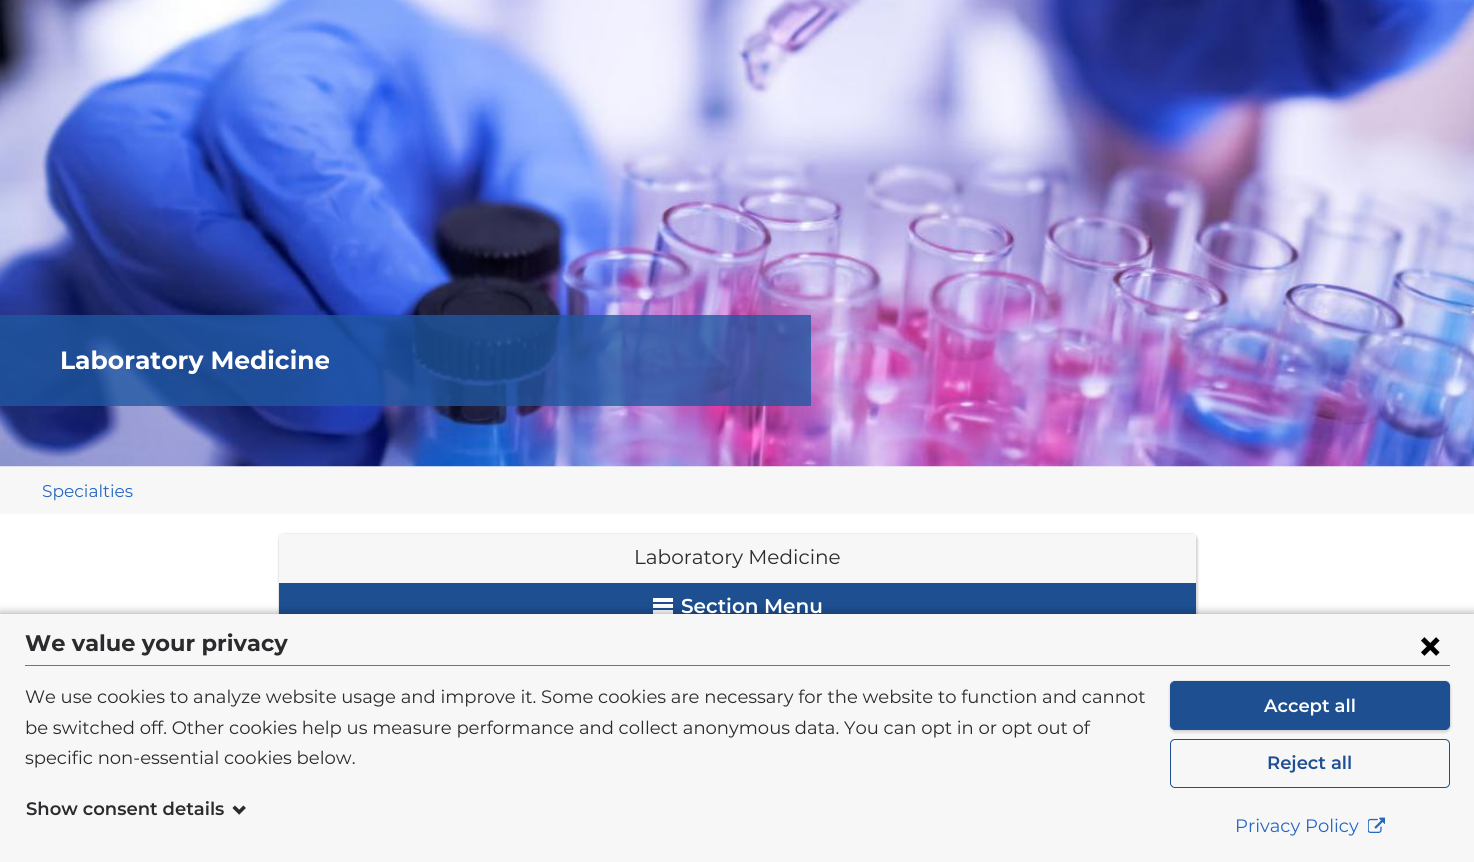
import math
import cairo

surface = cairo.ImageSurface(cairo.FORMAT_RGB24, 1474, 862)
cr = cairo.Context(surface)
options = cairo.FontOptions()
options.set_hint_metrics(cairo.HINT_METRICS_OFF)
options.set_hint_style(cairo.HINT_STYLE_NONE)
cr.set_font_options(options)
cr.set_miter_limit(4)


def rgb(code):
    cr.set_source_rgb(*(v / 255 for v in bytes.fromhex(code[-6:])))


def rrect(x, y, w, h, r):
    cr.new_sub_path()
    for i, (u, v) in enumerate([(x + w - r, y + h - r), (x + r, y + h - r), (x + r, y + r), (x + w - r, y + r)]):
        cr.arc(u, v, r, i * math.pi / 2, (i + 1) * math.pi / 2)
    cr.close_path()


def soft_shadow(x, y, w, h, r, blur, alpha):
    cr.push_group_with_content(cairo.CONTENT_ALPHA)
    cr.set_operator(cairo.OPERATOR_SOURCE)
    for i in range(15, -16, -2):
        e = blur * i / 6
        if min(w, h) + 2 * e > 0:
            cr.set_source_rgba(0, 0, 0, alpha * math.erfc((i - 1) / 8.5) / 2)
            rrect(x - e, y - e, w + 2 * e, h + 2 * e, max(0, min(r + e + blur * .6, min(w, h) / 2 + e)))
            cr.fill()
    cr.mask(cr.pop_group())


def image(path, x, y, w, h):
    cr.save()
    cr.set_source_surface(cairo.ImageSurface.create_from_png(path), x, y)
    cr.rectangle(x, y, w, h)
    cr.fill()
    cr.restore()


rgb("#ffffff")
cr.paint()
rgb("#f7f7f8")
cr.rectangle(0, 466, 1474, 48)
cr.fill()
image("img/1.png", 0, 0, 1474, 467)
cr.set_source_rgba(0.125, 0.345, 0.635, 0.78)
cr.rectangle(0, 315, 811, 91)
cr.fill()
rgb("#000000")
soft_shadow(278, 533, 920, 98, 6, 0.5, 0.06)
soft_shadow(279, 535, 919, 98, 6, 1, 0.1)
for x, y, w, h, color in [
    (279, 534, 917, 49, "#f7f7f8"),
    (279, 583, 917, 31, "#1d4f91"),
    (653, 604, 20, 4, "#ffffff"),
    (653, 598, 20, 4, "#ffffff"),
    (653, 610, 20, 4, "#ffffff"),
]:
    rgb(color)
    cr.rectangle(x, y, w, h)
    cr.fill()
rgb("#000000")
soft_shadow(0, 614, 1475, 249, 0, 5, 0.4)
rgb("#f7f7f8")
cr.rectangle(0, 614, 1474, 248)
cr.fill()
rgb("#71757a")
cr.rectangle(25, 665, 1425, 1)
cr.fill()
image("img/2.png", 1421, 637, 19, 19)
image("img/3.png", 232, 805, 14, 10)
rgb("#000000")
soft_shadow(1169, 680, 282, 51, 6, 0.5, 0.06)
soft_shadow(1170, 683, 281, 50, 6, 1, 0.1)
rgb("#1d4f91")
rrect(1170.5, 681.5, 279, 48, 4.5)
cr.fill_preserve()
cr.set_line_width(1)
cr.stroke()
rrect(1170.5, 739.5, 279, 48, 4.5)
cr.stroke()
image("img/4.png", 1368, 817, 17, 16)
cr.select_font_face("Montserrat", cairo.FONT_SLANT_NORMAL, cairo.FONT_WEIGHT_BOLD)
cr.set_font_size(25)
rgb("#ffffff")
cr.move_to(60, 369)
cr.show_text("Laboratory Medicine")
cr.select_font_face("Montserrat")
cr.set_font_size(17)
rgb("#2668c0")
cr.move_to(42, 497)
cr.show_text("Specialties")
cr.set_font_size(20)
rgb("#2a2b2d")
cr.move_to(634, 564)
cr.show_text("Laboratory Medicine")
cr.select_font_face("Montserrat SemiBold")
rgb("#ffffff")
cr.move_to(681, 613)
cr.show_text("Section Menu")
cr.select_font_face("Montserrat", cairo.FONT_SLANT_NORMAL, cairo.FONT_WEIGHT_BOLD)
cr.set_font_size(22.5)
rgb("#2a2b2d")
cr.move_to(25, 651)
cr.show_text("We value your privacy")
cr.select_font_face("Montserrat")
cr.set_font_size(18)
for x, y, s in [
    (25, 703, "We use cookies to analyze website usage and improve it. Some cookies are necessary for the website to function and cannot"),
    (25, 734, "be switched off. Other cookies help us measure performance and collect anonymous data. You can opt in or opt out of"),
    (25, 764, "specific non-essential cookies below."),
]:
    cr.move_to(x, y)
    cr.show_text(s)
cr.select_font_face("Montserrat SemiBold")
cr.move_to(26, 815)
cr.show_text("Show consent details")
rgb("#ffffff")
cr.move_to(1264, 712)
cr.show_text("Accept all")
rgb("#1d4f91")
cr.move_to(1267, 769)
cr.show_text("Reject all")
cr.select_font_face("Montserrat")
rgb("#2668c0")
cr.move_to(1235, 832)
cr.show_text("Privacy Policy")
surface.write_to_png("page.png")
